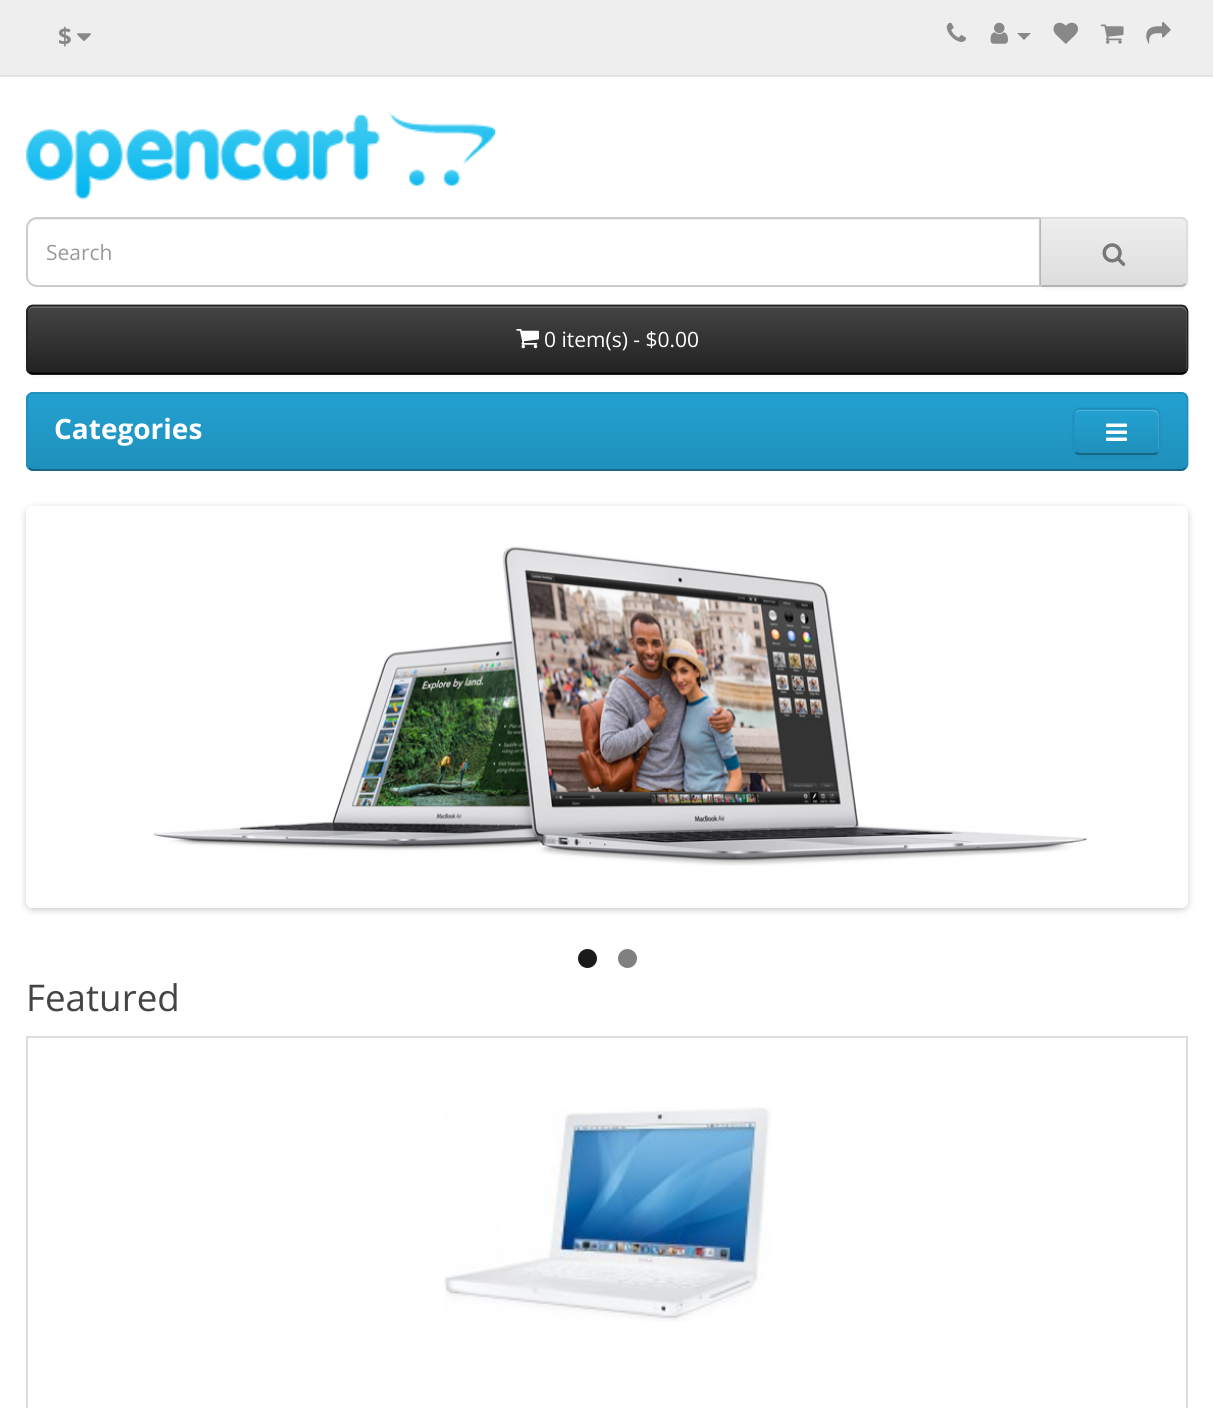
import math
import cairo

surface = cairo.ImageSurface(cairo.FORMAT_RGB24, 1213, 1408)
cr = cairo.Context(surface)
options = cairo.FontOptions()
options.set_hint_metrics(cairo.HINT_METRICS_OFF)
options.set_hint_style(cairo.HINT_STYLE_NONE)
cr.set_font_options(options)
cr.set_miter_limit(4)


def rgb(code):
    cr.set_source_rgb(*(v / 255 for v in bytes.fromhex(code[-6:])))


def rrect(x, y, w, h, r):
    cr.new_sub_path()
    for i, (u, v) in enumerate([(x + w - r, y + h - r), (x + r, y + h - r), (x + r, y + r), (x + w - r, y + r)]):
        cr.arc(u, v, r, i * math.pi / 2, (i + 1) * math.pi / 2)
    cr.close_path()


def soft_shadow(x, y, w, h, r, blur, alpha):
    cr.push_group_with_content(cairo.CONTENT_ALPHA)
    cr.set_operator(cairo.OPERATOR_SOURCE)
    for i in range(15, -16, -2):
        e = blur * i / 6
        if min(w, h) + 2 * e > 0:
            cr.set_source_rgba(0, 0, 0, alpha * math.erfc((i - 1) / 8.5) / 2)
            rrect(x - e, y - e, w + 2 * e, h + 2 * e, max(0, min(r + e + blur * .6, min(w, h) / 2 + e)))
            cr.fill()
    cr.mask(cr.pop_group())


def image(path, x, y, w, h):
    cr.save()
    cr.set_source_surface(cairo.ImageSurface.create_from_png(path), x, y)
    cr.rectangle(x, y, w, h)
    cr.fill()
    cr.restore()


rgb("#ffffff")
cr.paint()
rgb("#eeeeee")
cr.rectangle(0, 0, 1213, 75)
cr.fill()
rgb("#e2e2e2")
cr.rectangle(0, 75, 1213, 2)
cr.fill()
image("img/1.png", 77, 33, 14, 8)
image("img/2.png", 946, 22, 20, 20)
image("img/3.png", 990, 22, 18, 22)
rgb("#888888")
cr.new_path()
cr.move_to(1017, 33)
cr.line_to(1031, 33)
cr.line_to(1024, 40)
cr.close_path()
cr.fill()
image("img/4.png", 1053, 22, 25, 22)
image("img/5.png", 1100, 24, 24, 20)
image("img/6.png", 1146, 22, 25, 22)
image("img/7.png", 26, 112, 470, 88)
rgb("#ececec")
cr.new_path()
cr.move_to(37, 220)
cr.line_to(1040, 220)
cr.line_to(1040, 219)
cr.line_to(37, 219)
cr.curve_to(31, 219, 28, 224, 28, 229)
cr.curve_to(28, 224, 32, 220, 37, 220)
cr.close_path()
cr.fill()
cr.new_path()
cr.move_to(37, 218)
cr.line_to(1040, 218)
cr.line_to(1040, 286)
cr.line_to(37, 286)
cr.curve_to(31.5, 286, 27, 281.5, 27, 276)
cr.line_to(27, 228)
cr.curve_to(27, 222.5, 31.5, 218, 37, 218)
cr.close_path()
rgb("#cccccc")
cr.stroke()
rgb("#000000")
soft_shadow(1040, 219, 148, 70, 7, 2, 0.05)
rgb("#e7e7e7")
cr.new_path()
cr.move_to(1040, 217)
cr.line_to(1181, 217)
cr.curve_to(1185, 217, 1188, 220, 1188, 224)
cr.line_to(1188, 280)
cr.curve_to(1188, 284, 1185, 287, 1181, 287)
cr.line_to(1040, 287)
cr.close_path()
cr.fill()
cr.save()
cr.new_path()
cr.move_to(1040, 217)
cr.line_to(1181, 217)
cr.curve_to(1185, 217, 1188, 220, 1188, 224)
cr.line_to(1188, 280)
cr.curve_to(1188, 284, 1185, 287, 1181, 287)
cr.line_to(1040, 287)
cr.close_path()
cr.clip()
gradient = cairo.LinearGradient(1114, 219, 1114, 285)
gradient.add_color_stop_rgba(0, 0.933, 0.933, 0.933, 1)
gradient.add_color_stop_rgba(1, 0.867, 0.867, 0.867, 1)
cr.set_source(gradient)
cr.rectangle(1041, 219, 147, 66)
cr.fill()
cr.restore()
cr.set_source_rgba(1, 1, 1, 0.2)
cr.new_path()
cr.move_to(1041, 220)
cr.line_to(1158, 220)
cr.curve_to(1190, 220, 1186, 215, 1186, 245)
cr.line_to(1186, 283)
cr.curve_to(1187, 282, 1187, 281, 1187, 280)
cr.line_to(1187, 224)
cr.curve_to(1187, 221, 1185, 219, 1182, 219)
cr.line_to(1041, 219)
cr.close_path()
cr.fill()
rgb("#dddddd")
cr.new_path()
cr.move_to(1040, 217)
cr.line_to(1042, 219)
cr.line_to(1182, 219)
cr.line_to(1185, 221)
cr.line_to(1186, 219)
cr.curve_to(1185, 218, 1183, 217, 1181, 217)
cr.close_path()
cr.fill()
cr.new_path()
cr.move_to(1186, 219)
cr.curve_to(1187, 220, 1188, 222, 1188, 224)
cr.line_to(1188, 280)
cr.curve_to(1188, 282, 1187, 284, 1186, 285)
cr.line_to(1185, 283)
cr.curve_to(1186, 283, 1186, 281, 1186, 280)
cr.line_to(1186, 224)
cr.curve_to(1186, 223, 1186, 221, 1185, 221)
cr.close_path()
cr.fill()
rgb("#b3b3b3")
cr.new_path()
cr.move_to(1040, 287)
cr.line_to(1181, 287)
cr.curve_to(1183, 287, 1185, 286, 1186, 285)
cr.line_to(1185, 283)
cr.line_to(1182, 285)
cr.line_to(1042, 285)
cr.close_path()
cr.fill()
rgb("#b7b7b7")
cr.new_path()
cr.move_to(1041, 219)
cr.line_to(1042, 219)
cr.line_to(1040, 218)
cr.line_to(1040, 286)
cr.line_to(1042, 285)
cr.line_to(1041, 285)
cr.close_path()
cr.fill()
image("img/8.png", 1102, 243, 24, 23)
rgb("#000000")
soft_shadow(26, 306, 1162, 70, 7, 2, 0.05)
rgb("#363636")
rrect(26, 305, 1162, 70, 7)
cr.fill()
cr.save()
rrect(26, 305, 1162, 70, 7)
cr.clip()
gradient = cairo.LinearGradient(607, 306, 607, 373)
gradient.add_color_stop_rgba(0, 0.267, 0.267, 0.267, 1)
gradient.add_color_stop_rgba(1, 0.133, 0.133, 0.133, 1)
cr.set_source(gradient)
cr.rectangle(26, 306, 1162, 67)
cr.fill()
cr.restore()
cr.set_source_rgba(1, 1, 1, 0.2)
cr.new_path()
cr.move_to(33, 308)
cr.line_to(1181, 308)
cr.curve_to(1184, 308, 1186, 310, 1186, 313)
cr.line_to(1186, 369)
cr.line_to(1185, 372)
cr.curve_to(1186, 371, 1187, 369, 1187, 368)
cr.line_to(1187, 311)
cr.curve_to(1187, 308, 1185, 306, 1182, 306)
cr.line_to(33, 306)
cr.curve_to(30, 306, 28, 308, 28, 311)
cr.line_to(28, 313)
cr.curve_to(28, 310, 30, 308, 33, 308)
cr.close_path()
cr.fill()
cr.new_path()
cr.move_to(1185.5, 372)
cr.curve_to(1184.5, 373, 1183, 373.5, 1181, 373.5)
cr.line_to(33, 373.5)
cr.curve_to(31.5, 373.5, 30, 373, 29, 372)
rgb("#000000")
cr.set_line_width(1.8)
cr.stroke()
cr.new_path()
cr.move_to(29, 372)
cr.curve_to(28, 370.5, 27, 369, 27, 367.5)
cr.line_to(27, 311.5)
cr.curve_to(27, 310, 28, 308.5, 29, 307)
cr.curve_to(30, 306, 31.5, 305.5, 33, 305.5)
cr.line_to(1181, 305.5)
cr.curve_to(1183, 305.5, 1184.5, 306, 1185.5, 307)
cr.curve_to(1186.5, 308.5, 1187.5, 310, 1187.5, 311.5)
cr.line_to(1187.5, 367.5)
cr.curve_to(1187.5, 369, 1186.5, 370.5, 1185.5, 372)
rgb("#222222")
cr.stroke()
image("img/9.png", 516, 329, 23, 20)
rgb("#229ac8")
rrect(26, 392, 1162, 79, 7)
cr.fill()
cr.save()
rrect(26, 392, 1162, 79, 7)
cr.clip()
gradient = cairo.LinearGradient(607, 394, 607, 469)
gradient.add_color_stop_rgba(0, 0.137, 0.631, 0.82, 1)
gradient.add_color_stop_rgba(1, 0.122, 0.565, 0.733, 1)
cr.set_source(gradient)
cr.rectangle(26, 394, 1162, 75)
cr.fill()
cr.restore()
cr.new_path()
cr.move_to(1185.5, 468)
cr.curve_to(1184.5, 469, 1183, 470, 1181, 470)
cr.line_to(33, 470)
cr.curve_to(31.5, 470, 30, 469, 29, 468)
rgb("#145e7a")
cr.stroke()
cr.new_path()
cr.move_to(29, 468)
cr.curve_to(28, 467, 27, 465.5, 27, 464)
cr.line_to(27, 399)
cr.curve_to(27, 397.5, 28, 396, 29, 394.5)
cr.curve_to(30, 393.5, 31.5, 393, 33, 393)
cr.line_to(1181, 393)
cr.curve_to(1183, 393, 1184.5, 393.5, 1185.5, 394.5)
cr.curve_to(1186.5, 396, 1187.5, 397.5, 1187.5, 399)
cr.line_to(1187.5, 464)
cr.curve_to(1187.5, 465.5, 1186.5, 467, 1185.5, 468)
rgb("#1f90bb")
cr.stroke()
rgb("#000000")
soft_shadow(1073, 410, 87, 47, 7, 2, 0.05)
rgb("#229ac8")
rrect(1073, 408, 87, 47, 7)
cr.fill()
cr.save()
rrect(1073, 408, 87, 47, 7)
cr.clip()
gradient = cairo.LinearGradient(1117, 410, 1117, 453)
gradient.add_color_stop_rgba(0, 0.137, 0.631, 0.82, 1)
gradient.add_color_stop_rgba(1, 0.122, 0.565, 0.733, 1)
cr.set_source(gradient)
cr.rectangle(1073, 410, 87, 43)
cr.fill()
cr.restore()
cr.set_source_rgba(1, 1, 1, 0.2)
cr.new_path()
cr.move_to(1080, 411)
cr.line_to(1141, 411)
cr.curve_to(1160, 411, 1158, 410, 1158, 427)
cr.line_to(1158, 451)
cr.curve_to(1159, 450, 1159, 449, 1159, 448)
cr.line_to(1159, 415)
cr.curve_to(1159, 412, 1157, 410, 1154, 410)
cr.line_to(1080, 410)
cr.curve_to(1078, 410, 1076, 411, 1075, 413)
cr.curve_to(1076, 412, 1078, 411, 1080, 411)
cr.close_path()
cr.fill()
cr.new_path()
cr.move_to(1157.5, 452.5)
cr.curve_to(1156.5, 453.5, 1155, 454, 1153, 454)
cr.line_to(1080, 454)
cr.curve_to(1078, 454, 1076.5, 453.5, 1075.5, 452.5)
rgb("#145e7a")
cr.stroke()
cr.new_path()
cr.move_to(1075.5, 452.5)
cr.curve_to(1074.5, 451, 1073.5, 449.5, 1073.5, 448)
cr.line_to(1073.5, 415)
cr.curve_to(1073.5, 413, 1074.5, 411.5, 1075.5, 410.5)
cr.curve_to(1076.5, 409.5, 1078, 408.5, 1080, 408.5)
cr.line_to(1153, 408.5)
cr.curve_to(1155, 408.5, 1156.5, 409.5, 1157.5, 410.5)
cr.curve_to(1158.5, 411.5, 1159.5, 413, 1159.5, 415)
cr.line_to(1159.5, 448)
cr.curve_to(1159.5, 449.5, 1158.5, 451, 1157.5, 452.5)
rgb("#1f90bb")
cr.stroke()
image("img/10.png", 1106, 423, 21, 18)
cr.save()
cr.set_fill_rule(cairo.FILL_RULE_EVEN_ODD)
cr.new_path()
cr.move_to(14, 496)
cr.line_to(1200, 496)
cr.line_to(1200, 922)
cr.line_to(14, 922)
cr.close_path()
cr.move_to(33, 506)
cr.line_to(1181, 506)
cr.curve_to(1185, 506, 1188, 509, 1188, 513)
cr.line_to(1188, 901)
cr.curve_to(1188, 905, 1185, 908, 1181, 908)
cr.line_to(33, 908)
cr.curve_to(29, 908, 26, 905, 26, 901)
cr.line_to(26, 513)
cr.curve_to(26, 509, 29, 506, 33, 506)
cr.close_path()
cr.clip()
rgb("#000000")
soft_shadow(26, 508, 1162, 402, 7, 3.5, 0.2)
cr.restore()
rrect(29.5, 509.5, 1155, 395, 3.5)
rgb("#ffffff")
cr.set_line_width(7)
cr.stroke()
image("img/11.png", 153, 546, 935, 320)
rgb("#1a1a1a")
cr.arc(587.5, 958.5, 9.5, 0, 2 * math.pi)
cr.fill()
rgb("#808080")
cr.arc(627.5, 958.5, 9.5, 0, 2 * math.pi)
cr.fill()
cr.rectangle(27, 1037, 1160, 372)
rgb("#dddddd")
cr.set_line_width(2)
cr.stroke()
image("img/12.png", 444, 1107, 327, 215)
cr.select_font_face("Open Sans", cairo.FONT_SLANT_NORMAL, cairo.FONT_WEIGHT_BOLD)
cr.set_font_size(24)
rgb("#888888")
cr.move_to(58, 45)
cr.show_text("$")
cr.select_font_face("Open Sans")
cr.set_font_size(21)
rgb("#999999")
cr.move_to(46, 260)
cr.show_text("Search")
rgb("#ffffff")
cr.move_to(544, 347)
cr.show_text("0 item(s) - $0.00")
cr.select_font_face("Open Sans", cairo.FONT_SLANT_NORMAL, cairo.FONT_WEIGHT_BOLD)
cr.set_font_size(28)
cr.move_to(54, 439)
cr.show_text("Categories")
cr.select_font_face("Open Sans")
cr.set_font_size(36.75)
rgb("#444444")
cr.move_to(26, 1011)
cr.show_text("Featured")
surface.write_to_png("page.png")
